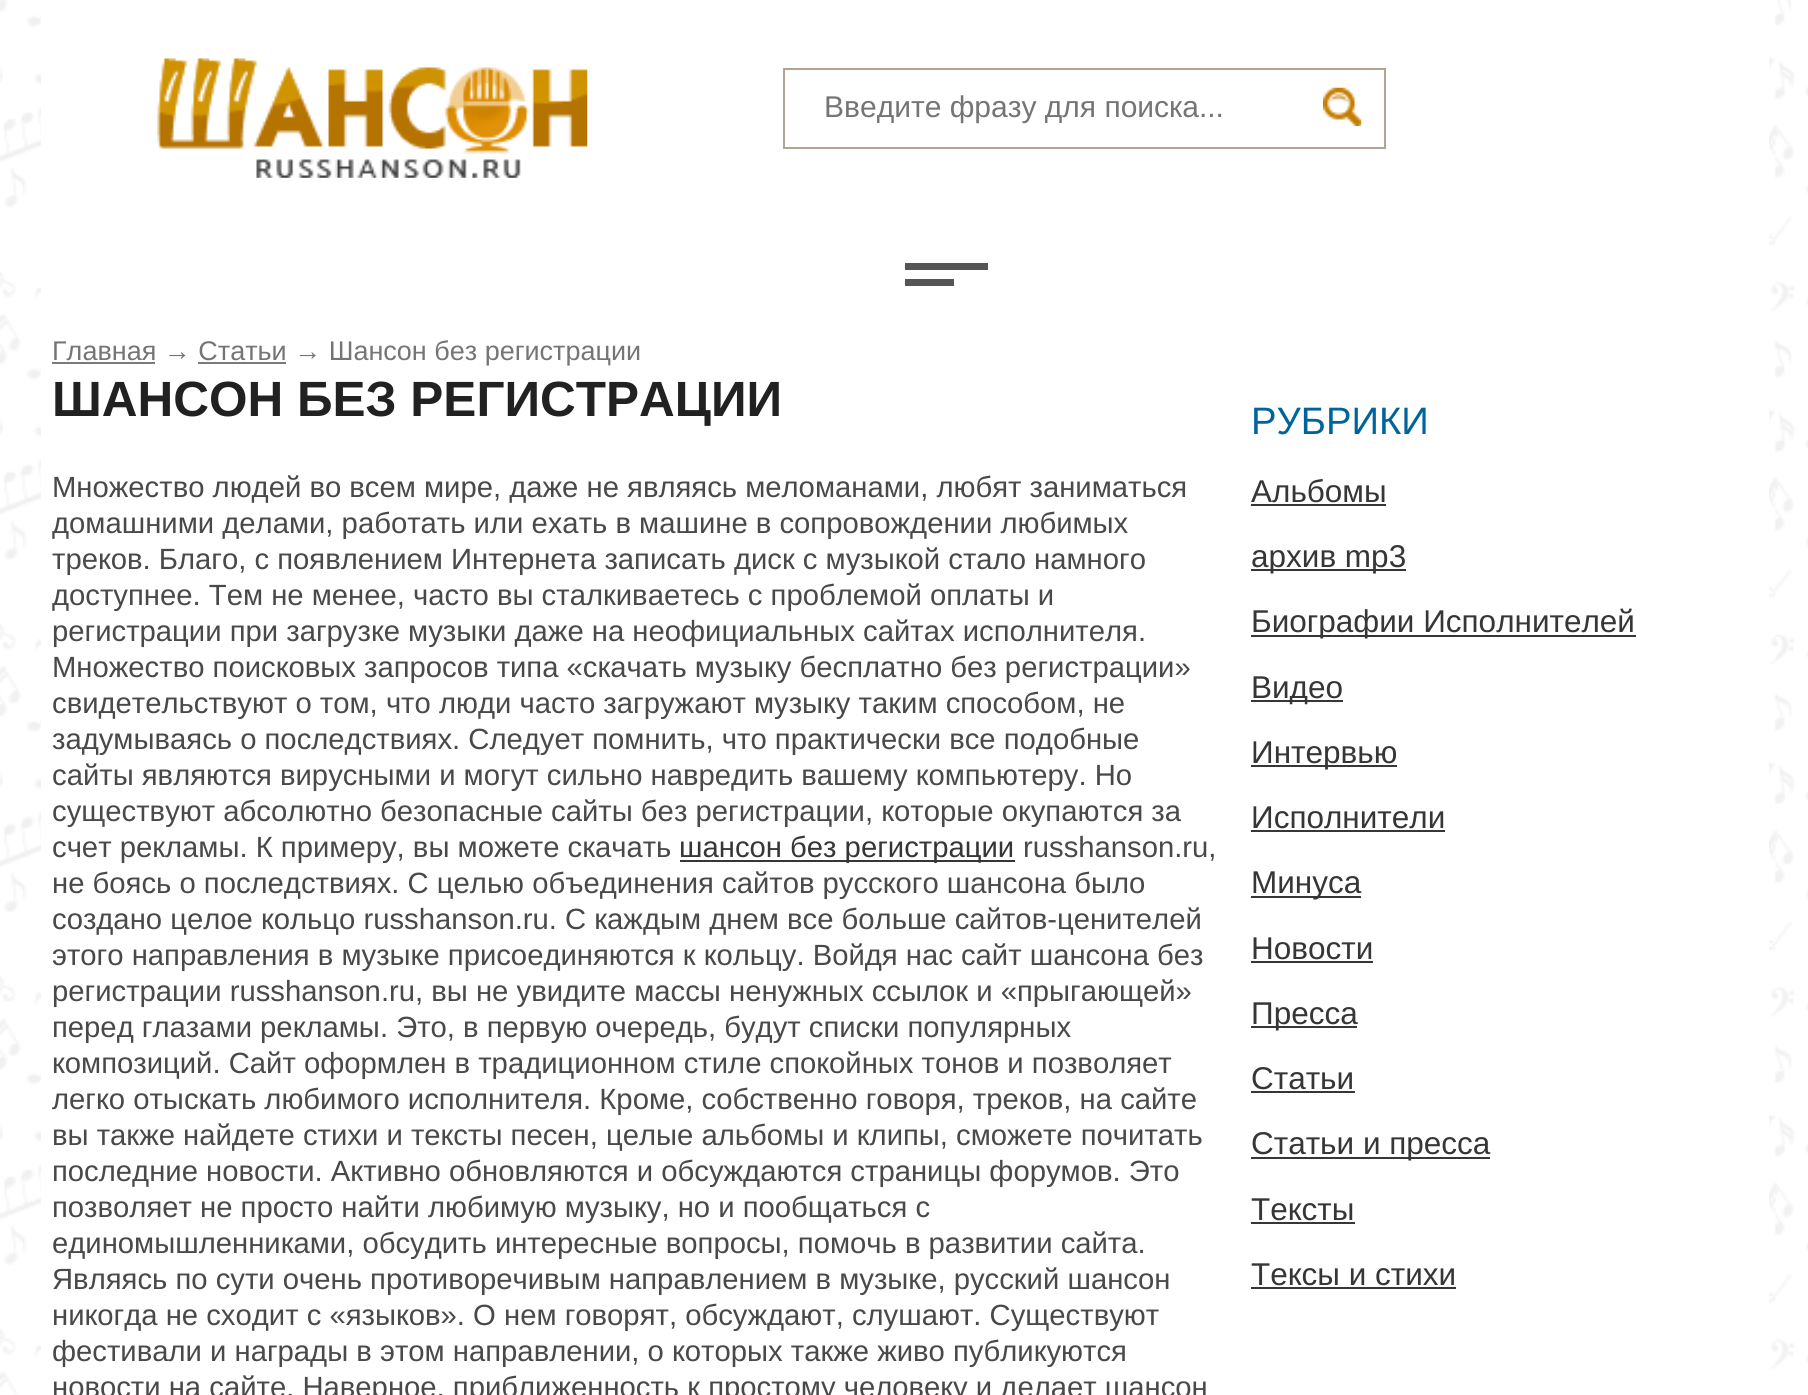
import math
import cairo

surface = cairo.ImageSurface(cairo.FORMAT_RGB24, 1808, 1395)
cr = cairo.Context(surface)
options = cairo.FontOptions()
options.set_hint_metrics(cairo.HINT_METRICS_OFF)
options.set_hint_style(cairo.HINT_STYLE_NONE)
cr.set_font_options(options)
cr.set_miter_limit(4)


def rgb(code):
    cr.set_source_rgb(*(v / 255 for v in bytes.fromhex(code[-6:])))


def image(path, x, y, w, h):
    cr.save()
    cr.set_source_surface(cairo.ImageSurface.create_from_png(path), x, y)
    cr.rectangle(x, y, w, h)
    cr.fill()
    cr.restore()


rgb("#ffffff")
cr.paint()
image("img/1.png", 0, 0, 1808, 1395)
rgb("#ffffff")
cr.rectangle(41, 0, 1728, 1395)
cr.fill()
image("img/2.png", 157, 58, 431, 120)
cr.rectangle(784, 69, 601, 79)
rgb("#b2a494")
cr.stroke()
image("img/3.png", 1323, 87, 39, 39)
for x, y, w, h, color in [
    (905, 263, 83, 7, "#555555"),
    (905, 279, 49, 7, "#555555"),
    (52, 362, 103, 2, "#7a7a7a"),
    (1251, 504, 135, 2, "#363636"),
    (1251, 569, 155, 2, "#363636"),
    (1251, 635, 385, 2, "#363636"),
    (1251, 700, 92, 2, "#363636"),
    (1251, 765, 146, 2, "#363636"),
    (1251, 830, 194, 2, "#363636"),
    (1251, 896, 110, 2, "#363636"),
    (1251, 961, 122, 2, "#363636"),
    (1251, 1026, 106, 2, "#363636"),
    (1251, 1091, 104, 2, "#363636"),
    (1251, 1157, 239, 2, "#363636"),
    (1251, 1222, 104, 2, "#363636"),
    (1251, 1287, 205, 2, "#363636"),
    (680, 860, 335, 2, "#363636"),
]:
    rgb(color)
    cr.rectangle(x, y, w, h)
    cr.fill()
cr.select_font_face("Liberation Sans")
cr.set_font_size(30)
rgb("#757575")
cr.move_to(824, 117)
cr.show_text("Введите фразу для поиска...")
cr.set_font_size(27)
cr.move_to(52, 360)
cr.show_text("Главная → Статьи → Шансон без регистрации")
rgb("#7a7a7a")
cr.rectangle(198, 362, 88, 2)
cr.fill()
cr.select_font_face("Liberation Sans", cairo.FONT_SLANT_NORMAL, cairo.FONT_WEIGHT_BOLD)
cr.set_font_size(49.5)
rgb("#212121")
cr.move_to(52, 416)
cr.show_text("ШАНСОН БЕЗ РЕГИСТРАЦИИ")
cr.select_font_face("Liberation Sans")
cr.set_font_size(38.25)
rgb("#00649c")
cr.move_to(1251, 434)
cr.show_text("РУБРИКИ")
cr.set_font_size(31.5)
rgb("#363636")
for x, y, s in [
    (1251, 502, "Альбомы"),
    (1251, 567, "архив mp3"),
    (1251, 632, "Биографии Исполнителей"),
    (1251, 698, "Видео"),
    (1251, 763, "Интервью"),
    (1251, 828, "Исполнители"),
    (1251, 893, "Минуса"),
    (1251, 959, "Новости"),
    (1251, 1024, "Пресса"),
    (1251, 1089, "Статьи"),
    (1251, 1154, "Статьи и пресса"),
    (1251, 1220, "Тексты"),
    (1251, 1285, "Тексы и стихи"),
]:
    cr.move_to(x, y)
    cr.show_text(s)
cr.set_font_size(29.25)
rgb("#494949")
for x, y, s in [
    (52, 497, "Множество людей во всем мире, даже не являясь меломанами, любят заниматься"),
    (52, 533, "домашними делами, работать или ехать в машине в сопровождении любимых"),
    (52, 569, "треков. Благо, с появлением Интернета записать диск с музыкой стало намного"),
    (52, 605, "доступнее. Тем не менее, часто вы сталкиваетесь с проблемой оплаты и"),
    (52, 641, "регистрации при загрузке музыки даже на неофициальных сайтах исполнителя."),
    (52, 677, "Множество поисковых запросов типа «скачать музыку бесплатно без регистрации»"),
    (52, 713, "свидетельствуют о том, что люди часто загружают музыку таким способом, не"),
    (52, 749, "задумываясь о последствиях. Следует помнить, что практически все подобные"),
    (52, 785, "сайты являются вирусными и могут сильно навредить вашему компьютеру. Но"),
    (52, 821, "существуют абсолютно безопасные сайты без регистрации, которые окупаются за"),
    (52, 857, "счет рекламы. К примеру, вы можете скачать"),
]:
    cr.move_to(x, y)
    cr.show_text(s)
rgb("#363636")
cr.move_to(679, 857)
cr.show_text("шансон без регистрации")
rgb("#494949")
for x, y, s in [
    (1023, 857, "russhanson.ru,"),
    (52, 893, "не боясь о последствиях. С целью объединения сайтов русского шансона было"),
    (52, 929, "создано целое кольцо russhanson.ru. С каждым днем все больше сайтов-ценителей"),
    (52, 965, "этого направления в музыке присоединяются к кольцу. Войдя нас сайт шансона без"),
    (52, 1001, "регистрации russhanson.ru, вы не увидите массы ненужных ссылок и «прыгающей»"),
    (52, 1037, "перед глазами рекламы. Это, в первую очередь, будут списки популярных"),
    (52, 1073, "композиций. Сайт оформлен в традиционном стиле спокойных тонов и позволяет"),
    (52, 1109, "легко отыскать любимого исполнителя. Кроме, собственно говоря, треков, на сайте"),
    (52, 1145, "вы также найдете стихи и тексты песен, целые альбомы и клипы, сможете почитать"),
    (52, 1181, "последние новости. Активно обновляются и обсуждаются страницы форумов. Это"),
    (52, 1217, "позволяет не просто найти любимую музыку, но и пообщаться с"),
    (52, 1253, "единомышленниками, обсудить интересные вопросы, помочь в развитии сайта."),
    (52, 1289, "Являясь по сути очень противоречивым направлением в музыке, русский шансон"),
    (52, 1325, "никогда не сходит с «языков». О нем говорят, обсуждают, слушают. Существуют"),
    (52, 1361, "фестивали и награды в этом направлении, о которых также живо публикуются"),
    (52, 1397, "новости на сайте. Наверное, приближенность к простому человеку и делает шансон"),
]:
    cr.move_to(x, y)
    cr.show_text(s)
surface.write_to_png("page.png")
